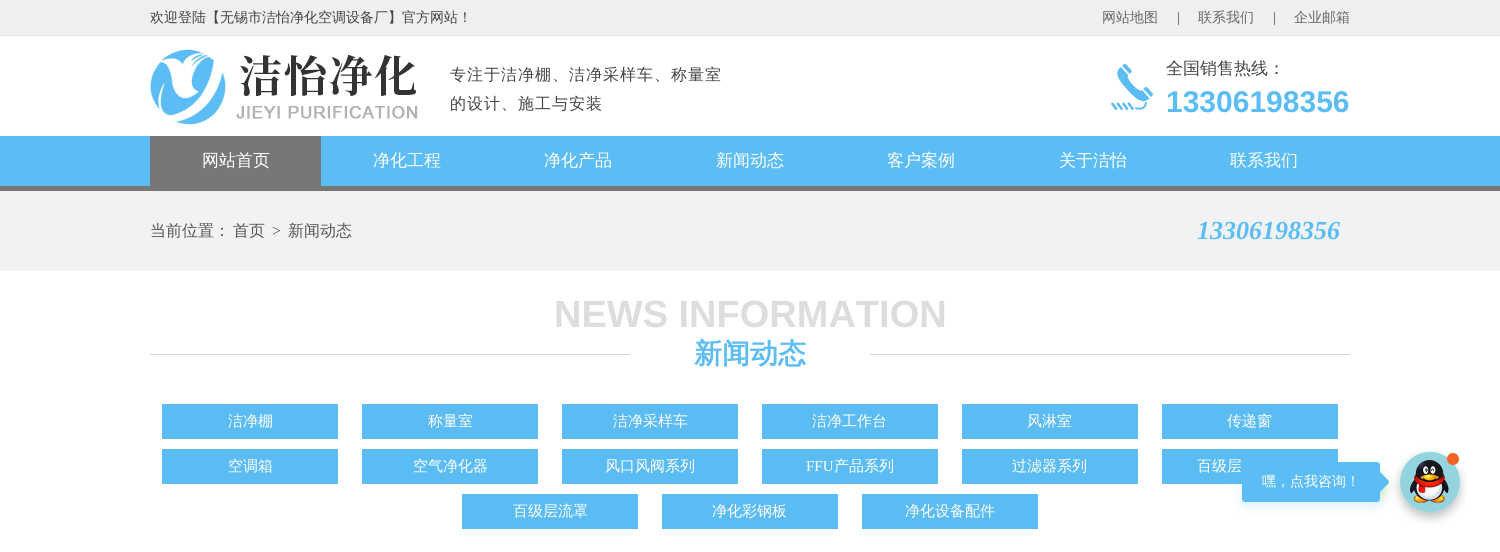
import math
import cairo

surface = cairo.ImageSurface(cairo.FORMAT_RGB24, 1500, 552)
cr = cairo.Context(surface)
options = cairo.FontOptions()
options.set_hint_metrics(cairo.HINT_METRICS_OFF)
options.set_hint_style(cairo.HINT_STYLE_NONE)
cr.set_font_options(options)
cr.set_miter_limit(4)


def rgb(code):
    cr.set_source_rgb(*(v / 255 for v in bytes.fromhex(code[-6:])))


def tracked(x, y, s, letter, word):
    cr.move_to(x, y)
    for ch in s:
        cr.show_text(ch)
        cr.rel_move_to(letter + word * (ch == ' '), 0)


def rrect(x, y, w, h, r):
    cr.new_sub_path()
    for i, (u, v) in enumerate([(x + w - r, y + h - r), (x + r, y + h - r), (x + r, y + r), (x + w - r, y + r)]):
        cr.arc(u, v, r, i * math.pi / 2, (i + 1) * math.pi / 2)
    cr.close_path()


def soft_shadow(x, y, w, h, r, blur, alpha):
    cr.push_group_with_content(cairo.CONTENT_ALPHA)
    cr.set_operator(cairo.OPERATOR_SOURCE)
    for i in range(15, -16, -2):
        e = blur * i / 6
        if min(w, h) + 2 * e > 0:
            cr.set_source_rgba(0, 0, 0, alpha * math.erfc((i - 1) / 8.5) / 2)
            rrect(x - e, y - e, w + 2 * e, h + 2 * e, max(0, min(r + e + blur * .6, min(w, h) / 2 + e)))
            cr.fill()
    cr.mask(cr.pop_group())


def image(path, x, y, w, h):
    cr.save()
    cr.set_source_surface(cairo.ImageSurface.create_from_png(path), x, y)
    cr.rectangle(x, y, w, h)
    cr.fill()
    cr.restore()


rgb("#ffffff")
cr.paint()
rgb("#efefef")
cr.rectangle(0, 0, 1500, 35)
cr.fill()
rgb("#dfdfdf")
cr.rectangle(0, 35, 1500, 1)
cr.fill()
image("img/1.png", 150, 49, 268, 76)
image("img/2.png", 1111, 64, 42, 46)
image("img/3.png", 0, 136, 1500, 55)
rgb("#777777")
cr.rectangle(150, 136, 171, 50)
cr.fill()
rgb("#f1f2f4")
cr.rectangle(0, 191, 1500, 80)
cr.fill()
image("img/4.png", 150, 354, 1200, 1)
for x, y, w, h, color in [
    (162, 404, 176, 35, "#5bbcf3"),
    (362, 404, 176, 35, "#5bbcf3"),
    (562, 404, 176, 35, "#5bbcf3"),
    (762, 404, 176, 35, "#5bbcf3"),
    (962, 404, 176, 35, "#5bbcf3"),
    (1162, 404, 176, 35, "#5bbcf3"),
    (162, 449, 176, 35, "#5bbcf3"),
    (362, 449, 176, 35, "#5bbcf3"),
    (562, 449, 176, 35, "#5bbcf3"),
    (762, 449, 176, 35, "#5bbcf3"),
    (962, 449, 176, 35, "#5bbcf3"),
    (1162, 449, 176, 35, "#5bbcf3"),
    (462, 494, 176, 35, "#5bbcf3"),
    (662, 494, 176, 35, "#5bbcf3"),
    (862, 494, 176, 35, "#5bbcf3"),
]:
    rgb(color)
    cr.rectangle(x, y, w, h)
    cr.fill()
cr.save()
cr.set_fill_rule(cairo.FILL_RULE_EVEN_ODD)
cr.new_path()
cr.move_to(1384, 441)
cr.line_to(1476, 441)
cr.line_to(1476, 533)
cr.line_to(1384, 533)
cr.close_path()
cr.move_to(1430, 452)
cr.curve_to(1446.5, 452, 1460, 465.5, 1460, 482)
cr.curve_to(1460, 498.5, 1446.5, 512, 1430, 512)
cr.curve_to(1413.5, 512, 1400, 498.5, 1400, 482)
cr.curve_to(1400, 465.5, 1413.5, 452, 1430, 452)
cr.close_path()
cr.clip()
rgb("#233238")
soft_shadow(1400, 457, 60, 60, 30, 5, 0.3)
cr.restore()
rgb("#3fb104")
soft_shadow(1366, 477, 20, 20, 3, 5, 0.2)
cr.set_source_rgba(0.357, 0.737, 0.953, 0.25)
cr.arc(1430, 482, 30, 0, 2 * math.pi)
cr.fill()
cr.arc(1430, 482, 30, 0, 2 * math.pi)
cr.fill()
cr.arc(1430, 482, 30, 0, 2 * math.pi)
cr.fill()
image("img/5.png", 1400, 452, 60, 60)
rgb("#f56125")
cr.arc(1453, 459, 6, 0, 2 * math.pi)
cr.fill()
rgb("#5bbcf3")
soft_shadow(1242, 467, 138, 40, 3, 5, 0.2)
rgb("#5cbdf4")
cr.new_path()
cr.move_to(1364, 480)
cr.line_to(1374, 470)
cr.curve_to(1375, 469, 1377, 469, 1378, 470)
cr.line_to(1388, 480)
cr.curve_to(1389, 481, 1389, 483, 1388, 484)
cr.line_to(1378, 494)
cr.curve_to(1377, 495, 1375, 495, 1374, 494)
cr.line_to(1364, 484)
cr.curve_to(1363, 483, 1363, 481, 1364, 480)
cr.close_path()
cr.fill()
rrect(1242, 462, 138, 40, 3)
cr.fill()
cr.select_font_face("WenQuanYi Zen Hei Medium")
cr.set_font_size(14)
rgb("#444444")
cr.move_to(150, 22)
cr.show_text("欢迎登陆【无锡市洁怡净化空调设备厂】官方网站！")
rgb("#666666")
cr.move_to(1102, 22)
cr.show_text("网站地图")
cr.select_font_face("Liberation Serif")
rgb("#444444")
cr.move_to(1177, 22)
cr.show_text("|")
cr.select_font_face("WenQuanYi Zen Hei Medium")
rgb("#666666")
cr.move_to(1198, 22)
cr.show_text("联系我们")
cr.select_font_face("Liberation Serif")
rgb("#444444")
cr.move_to(1273, 22)
cr.show_text("|")
cr.select_font_face("WenQuanYi Zen Hei Medium")
rgb("#666666")
cr.move_to(1294, 22)
cr.show_text("企业邮箱")
cr.set_font_size(16)
rgb("#444444")
tracked(450, 80, "专注于洁净棚、洁净采样车、称量室", 1, 0)
tracked(450, 109, "的设计、施工与安装", 1, 0)
cr.set_font_size(17)
cr.move_to(1166, 74)
cr.show_text("全国销售热线：")
cr.select_font_face("Liberation Sans", cairo.FONT_SLANT_NORMAL, cairo.FONT_WEIGHT_BOLD)
cr.set_font_size(30)
rgb("#5cbdf4")
cr.move_to(1166, 112)
cr.show_text("13306198356")
cr.select_font_face("WenQuanYi Zen Hei Medium")
cr.set_font_size(17)
rgb("#ffffff")
for x, y, s in [
    (202, 166, "网站首页"),
    (373, 166, "净化工程"),
    (544, 166, "净化产品"),
    (716, 166, "新闻动态"),
    (887, 166, "客户案例"),
    (1059, 166, "关于洁怡"),
    (1230, 166, "联系我们"),
]:
    cr.move_to(x, y)
    cr.show_text(s)
cr.set_font_size(16)
rgb("#555555")
cr.move_to(150, 236)
cr.show_text("当前位置：")
cr.move_to(233, 236)
cr.show_text("首页")
cr.select_font_face("Liberation Serif")
cr.move_to(272, 236)
cr.show_text(">")
cr.select_font_face("WenQuanYi Zen Hei Medium")
cr.move_to(288, 236)
cr.show_text("新闻动态")
cr.select_font_face("Liberation Serif", cairo.FONT_SLANT_ITALIC, cairo.FONT_WEIGHT_BOLD)
cr.set_font_size(26)
rgb("#5cbdf4")
cr.move_to(1197, 239)
cr.show_text("13306198356")
cr.select_font_face("Liberation Sans", cairo.FONT_SLANT_NORMAL, cairo.FONT_WEIGHT_BOLD)
cr.set_font_size(38)
rgb("#dddddd")
cr.move_to(554, 327)
cr.show_text("NEWS INFORMATION")
cr.select_font_face("WenQuanYi Zen Hei", cairo.FONT_SLANT_NORMAL, cairo.FONT_WEIGHT_BOLD)
cr.set_font_size(28)
rgb("#5cbdf4")
cr.move_to(694, 363)
cr.show_text("新闻动态")
cr.select_font_face("WenQuanYi Zen Hei Medium")
cr.set_font_size(15)
rgb("#ffffff")
for x, y, s in [
    (228, 426, "洁净棚"),
    (428, 426, "称量室"),
    (613, 426, "洁净采样车"),
    (812, 426, "洁净工作台"),
    (1027, 426, "风淋室"),
    (1227, 426, "传递窗"),
    (228, 471, "空调箱"),
    (413, 471, "空气净化器"),
    (605, 471, "风口风阀系列"),
]:
    cr.move_to(x, y)
    cr.show_text(s)
cr.select_font_face("Liberation Serif")
cr.move_to(806, 471)
cr.show_text("FFU")
cr.select_font_face("WenQuanYi Zen Hei Medium")
for x, y, s in [
    (834, 471, "产品系列"),
    (1012, 471, "过滤器系列"),
    (1197, 471, "百级层"),
    (513, 516, "百级层流罩"),
    (712, 516, "净化彩钢板"),
    (905, 516, "净化设备配件"),
]:
    cr.move_to(x, y)
    cr.show_text(s)
cr.set_font_size(14)
cr.move_to(1262, 486)
cr.show_text("嘿，点我咨询！")
surface.write_to_png("page.png")
